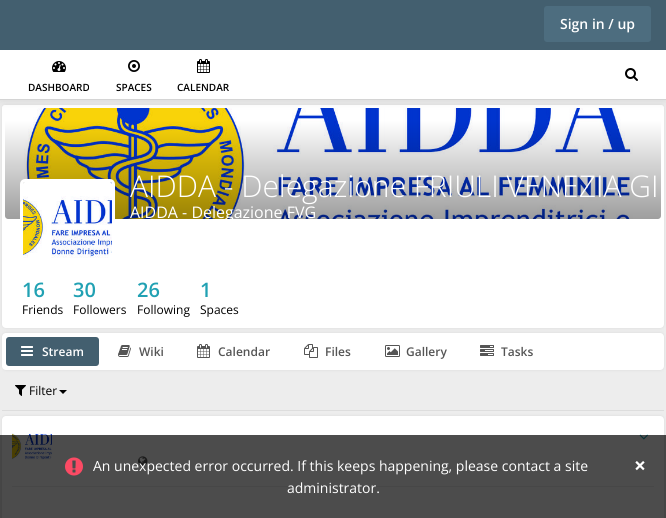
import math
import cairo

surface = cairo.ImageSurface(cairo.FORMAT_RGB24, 666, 518)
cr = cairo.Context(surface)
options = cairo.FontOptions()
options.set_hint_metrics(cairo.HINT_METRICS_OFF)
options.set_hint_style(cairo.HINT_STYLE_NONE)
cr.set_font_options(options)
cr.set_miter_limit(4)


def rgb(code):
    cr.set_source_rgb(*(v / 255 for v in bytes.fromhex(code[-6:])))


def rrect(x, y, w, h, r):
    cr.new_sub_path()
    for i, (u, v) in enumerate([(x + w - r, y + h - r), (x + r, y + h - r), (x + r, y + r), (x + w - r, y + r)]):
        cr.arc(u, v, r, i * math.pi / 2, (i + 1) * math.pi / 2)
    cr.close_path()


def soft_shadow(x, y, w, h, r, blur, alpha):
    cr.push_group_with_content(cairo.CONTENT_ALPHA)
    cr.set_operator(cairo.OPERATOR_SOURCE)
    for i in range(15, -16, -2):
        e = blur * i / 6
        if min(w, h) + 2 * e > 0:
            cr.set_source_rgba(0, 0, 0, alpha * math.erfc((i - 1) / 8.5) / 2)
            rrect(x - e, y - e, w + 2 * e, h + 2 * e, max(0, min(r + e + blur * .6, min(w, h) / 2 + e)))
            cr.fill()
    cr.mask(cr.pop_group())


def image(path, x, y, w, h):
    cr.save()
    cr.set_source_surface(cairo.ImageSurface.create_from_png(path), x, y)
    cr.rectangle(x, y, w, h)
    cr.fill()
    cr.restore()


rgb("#ededed")
cr.paint()
rgb("#dadada")
soft_shadow(2, 105, 662, 223, 4, 1.5, 1)
rgb("#ffffff")
rrect(2, 105, 662, 223, 4)
cr.fill()
cr.new_path()
cr.move_to(5, 106.5)
cr.line_to(661, 106.5)
cr.curve_to(662, 106.5, 662.5, 107, 662.5, 108)
cr.line_to(662.5, 220.5)
cr.line_to(3.5, 220.5)
cr.line_to(3.5, 108)
cr.curve_to(3.5, 107, 4, 106.5, 5, 106.5)
cr.close_path()
cr.set_line_width(3)
cr.stroke()
image("img/6.png", 24, 108, 609, 111)
rgb("#000000")
soft_shadow(0, 51, 666, 50, 0, 5, 0.1)
rgb("#435f6f")
cr.rectangle(0, 0, 666, 50)
cr.fill()
rgb("#4d6d7f")
rrect(544, 6, 107, 36, 3)
cr.fill()
rgb("#ffffff")
cr.rectangle(0, 50, 666, 49)
cr.fill()
rgb("#d4d4d4")
cr.rectangle(0, 99, 666, 1)
cr.fill()
image("img/1.png", 625, 68, 13, 13)
image("img/2.png", 52, 61, 14, 11)
image("img/3.png", 128, 60, 12, 12)
image("img/4.png", 197, 59, 13, 14)
gradient = cairo.LinearGradient(333, 119, 333, 219)
gradient.add_color_stop_rgba(0, 0, 0, 0, 0)
gradient.add_color_stop_rgba(0.01, 0, 0, 0, 0)
gradient.add_color_stop_rgba(1, 0, 0, 0, 0.38)
cr.set_source(gradient)
cr.new_path()
cr.move_to(5, 119)
cr.line_to(661, 119)
cr.line_to(661, 216)
cr.curve_to(661, 217.5, 659.5, 219, 658, 219)
cr.line_to(8, 219)
cr.curve_to(6.5, 219, 5, 217.5, 5, 216)
cr.close_path()
cr.fill()
rrect(21.5, 180.5, 92, 92, 3.5)
rgb("#ffffff")
cr.stroke()
image("img/5.png", 23, 182, 89, 76)
rgb("#dadada")
soft_shadow(2, 333, 662, 37, 4, 1.5, 1)
rgb("#ffffff")
rrect(2, 333, 662, 37, 4)
cr.fill()
rgb("#435f6f")
rrect(6, 337, 93, 29, 3)
cr.fill()
image("img/7.png", 21, 346, 12, 10)
image("img/8.png", 118, 345, 13, 12)
image("img/9.png", 197, 344, 13, 14)
image("img/10.png", 304, 344, 14, 14)
image("img/11.png", 385, 345, 15, 12)
image("img/12.png", 480, 345, 14, 11)
rgb("#dddddd")
cr.rectangle(2, 410, 662, 1)
cr.fill()
image("img/13.png", 15, 385, 11, 11)
rgb("#000000")
cr.new_path()
cr.move_to(59, 390)
cr.line_to(67, 390)
cr.line_to(63, 394)
cr.close_path()
cr.fill()
rgb("#dadada")
soft_shadow(2, 416, 662, 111, 4, 1.5, 1)
rgb("#ffffff")
rrect(2, 416, 662, 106, 4)
cr.fill()
rgb("#eeeeee")
cr.rectangle(12, 486, 642, 1)
cr.fill()
image("img/14.png", 12, 433, 40, 27)
image("img/15.png", 639, 434, 9, 6)
image("img/16.png", 138, 456, 10, 10)
cr.set_source_rgba(0, 0, 0, 0.7)
cr.rectangle(0, 435, 666, 83)
cr.fill()
image("img/17.png", 65, 457, 18, 19)
cr.select_font_face("Open Sans SemiBold")
cr.set_font_size(14)
rgb("#ffffff")
cr.move_to(560, 29)
cr.show_text("Sign in / up")
cr.set_font_size(10)
rgb("#000000")
for x, y, s in [
    (28, 91, "DASHBOARD"),
    (116, 91, "SPACES"),
    (177, 91, "CALENDAR"),
]:
    cr.move_to(x, y)
    cr.show_text(s)
cr.select_font_face("Open Sans Light")
cr.set_font_size(30)
rgb("#ffffff")
cr.move_to(130, 197)
cr.show_text("AIDDA - Delegazione FRIULI VENEZIA GI")
cr.save()
cr.rectangle(5, 108, 656, 111)
cr.clip()
cr.select_font_face("Open Sans")
cr.set_font_size(16)
cr.move_to(130, 218)
cr.show_text("AIDDA - Delegazione FVG")
cr.restore()
cr.select_font_face("Open Sans SemiBold")
cr.set_font_size(20)
rgb("#21a1b3")
cr.move_to(22, 297)
cr.show_text("16")
cr.select_font_face("Open Sans")
cr.set_font_size(12)
rgb("#000000")
cr.move_to(22, 314)
cr.show_text("Friends")
cr.select_font_face("Open Sans SemiBold")
cr.set_font_size(20)
rgb("#21a1b3")
cr.move_to(73, 297)
cr.show_text("30")
cr.select_font_face("Open Sans")
cr.set_font_size(12)
rgb("#000000")
cr.move_to(73, 314)
cr.show_text("Followers")
cr.select_font_face("Open Sans SemiBold")
cr.set_font_size(20)
rgb("#21a1b3")
cr.move_to(137, 297)
cr.show_text("26")
cr.select_font_face("Open Sans")
cr.set_font_size(12)
rgb("#000000")
cr.move_to(137, 314)
cr.show_text("Following")
cr.select_font_face("Open Sans SemiBold")
cr.set_font_size(20)
rgb("#21a1b3")
cr.move_to(200, 297)
cr.show_text("1")
cr.select_font_face("Open Sans")
cr.set_font_size(12)
rgb("#000000")
cr.move_to(200, 314)
cr.show_text("Spaces")
cr.select_font_face("Open Sans SemiBold")
rgb("#ffffff")
cr.move_to(42, 356)
cr.show_text("Stream")
rgb("#555555")
for x, y, s in [
    (139, 356, "Wiki"),
    (218, 356, "Calendar"),
    (325, 356, "Files"),
    (406, 356, "Gallery"),
    (501, 356, "Tasks"),
]:
    cr.move_to(x, y)
    cr.show_text(s)
cr.select_font_face("Open Sans")
rgb("#000000")
cr.move_to(29, 395)
cr.show_text("Filter")
cr.set_font_size(14)
rgb("#ffffff")
cr.move_to(93, 471)
cr.show_text("An unexpected error occurred. If this keeps happening, please contact a site")
cr.select_font_face("Open Sans", cairo.FONT_SLANT_NORMAL, cairo.FONT_WEIGHT_BOLD)
cr.set_font_size(21)
cr.move_to(634, 473)
cr.show_text("×")
cr.select_font_face("Open Sans")
cr.set_font_size(14)
cr.move_to(287, 493)
cr.show_text("administrator.")
surface.write_to_png("page.png")
